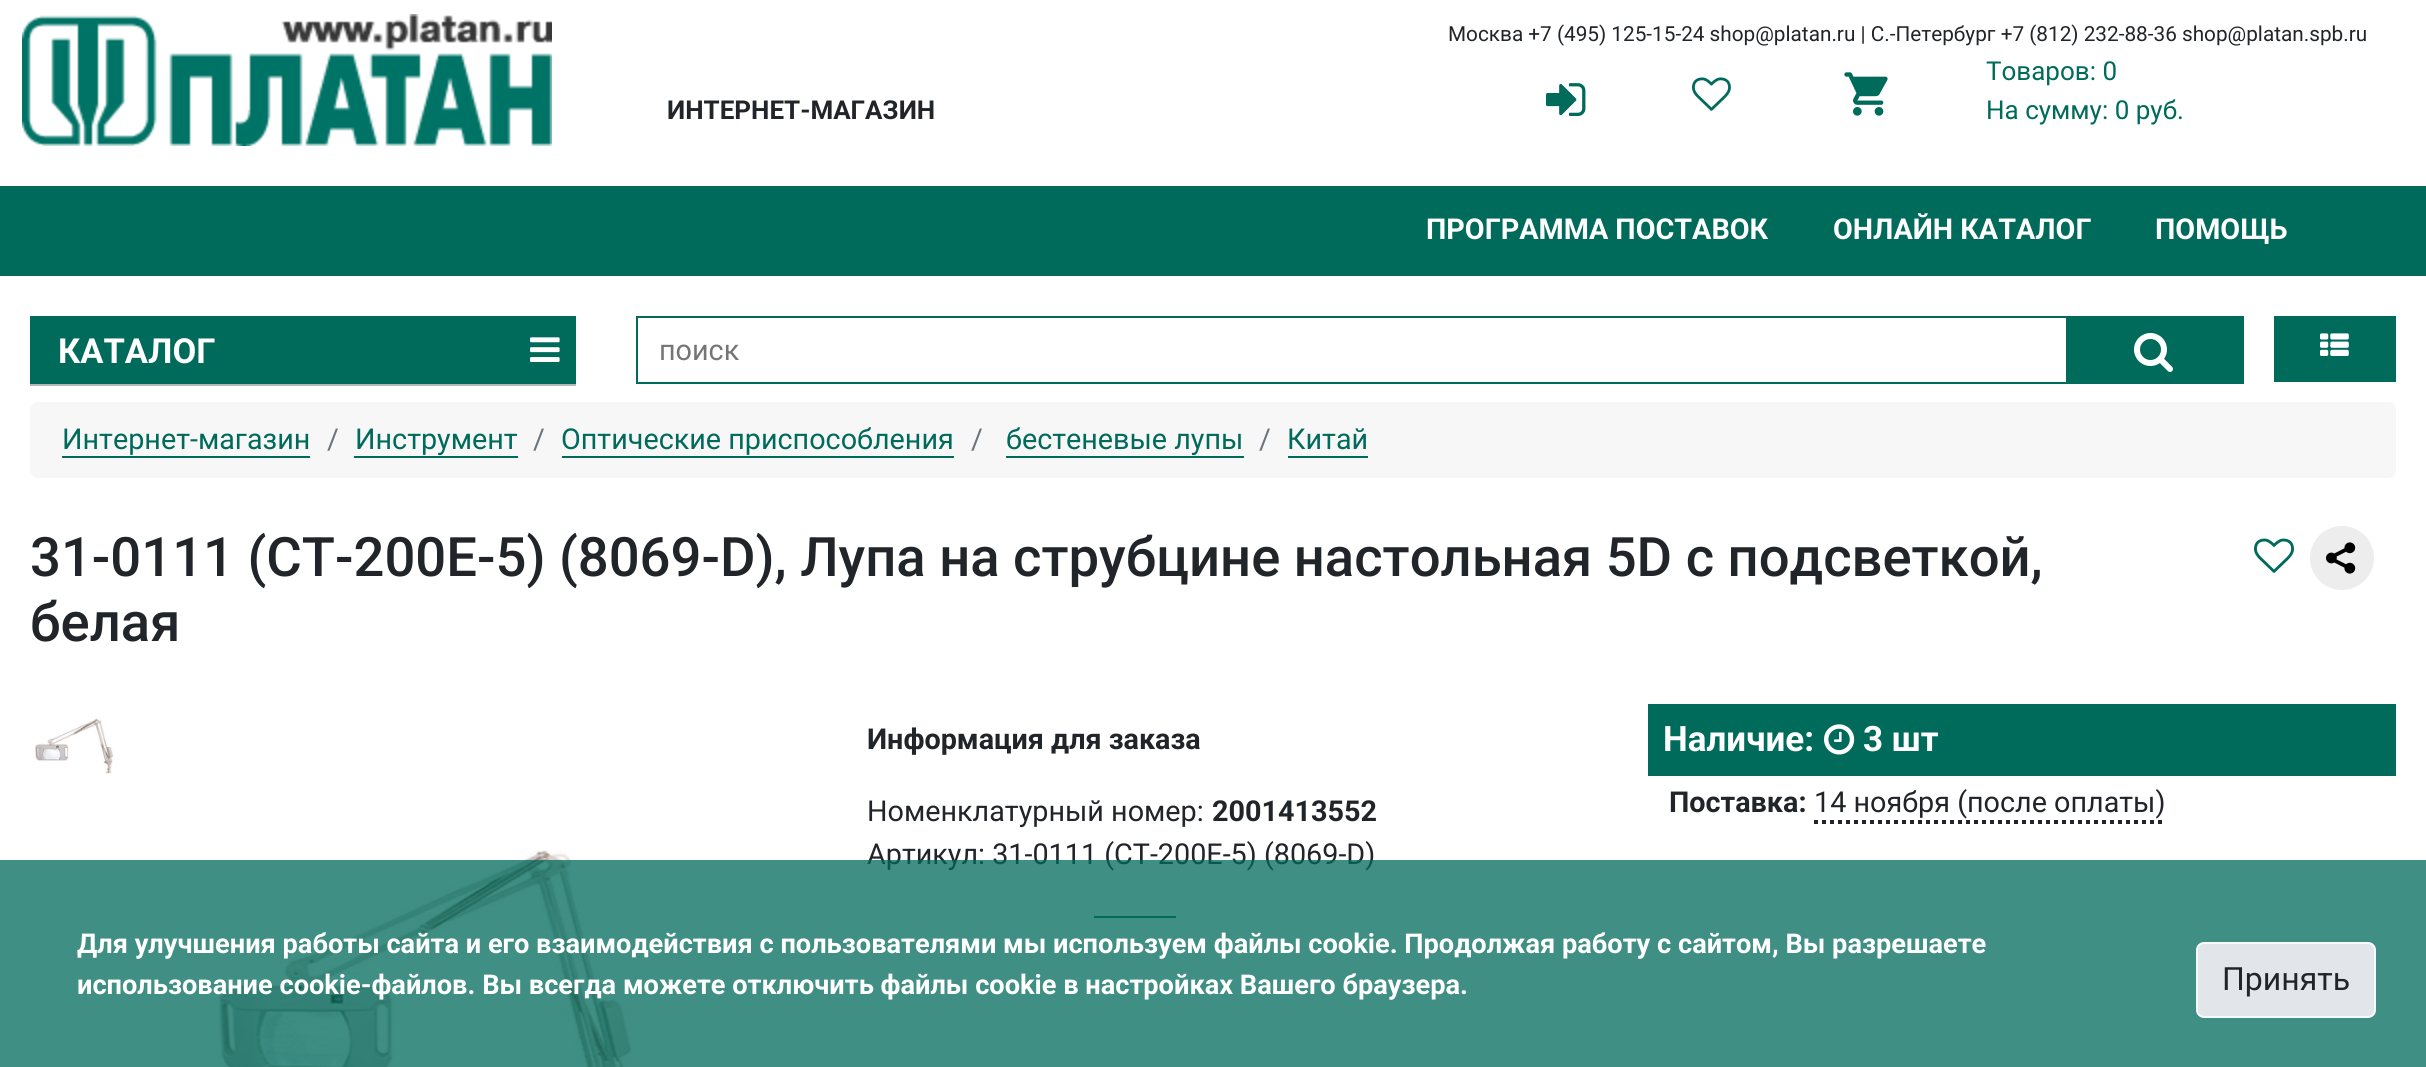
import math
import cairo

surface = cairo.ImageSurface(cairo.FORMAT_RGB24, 2426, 1067)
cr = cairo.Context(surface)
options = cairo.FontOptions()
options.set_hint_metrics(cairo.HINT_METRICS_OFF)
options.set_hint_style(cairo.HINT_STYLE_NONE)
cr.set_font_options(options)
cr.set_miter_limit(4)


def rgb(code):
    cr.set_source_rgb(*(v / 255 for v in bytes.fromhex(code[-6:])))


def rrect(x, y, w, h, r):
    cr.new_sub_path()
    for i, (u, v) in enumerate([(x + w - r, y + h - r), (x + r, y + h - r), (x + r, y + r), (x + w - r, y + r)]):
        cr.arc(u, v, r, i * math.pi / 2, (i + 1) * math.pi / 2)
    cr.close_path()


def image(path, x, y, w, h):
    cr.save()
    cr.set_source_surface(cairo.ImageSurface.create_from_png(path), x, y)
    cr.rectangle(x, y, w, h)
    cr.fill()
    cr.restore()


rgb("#ffffff")
cr.paint()
image("img/1.png", 22, 14, 530, 132)
image("img/2.png", 1546, 83, 40, 33)
image("img/3.png", 1692, 77, 39, 34)
image("img/4.png", 1844, 72, 44, 44)
for x, y, w, h, color in [
    (0, 186, 2426, 90, "#006a5b"),
    (30, 316, 546, 68, "#006a5b"),
    (30, 384, 546, 2, "#b7b7b7"),
]:
    rgb(color)
    cr.rectangle(x, y, w, h)
    cr.fill()
image("img/5.png", 530, 337, 30, 25)
cr.rectangle(637, 317, 1606, 66)
rgb("#006a5b")
cr.stroke()
cr.rectangle(2066, 318, 176, 64)
cr.fill()
image("img/6.png", 2134, 333, 39, 39)
cr.rectangle(2274, 316, 122, 66)
cr.fill()
image("img/7.png", 2320, 333, 29, 23)
rgb("#f7f7f7")
rrect(30, 402, 2366, 76, 8)
cr.fill()
for x, y, w, h, color in [
    (62, 456, 248, 2, "#006a5b"),
    (354, 456, 164, 2, "#006a5b"),
    (562, 456, 392, 2, "#006a5b"),
    (1006, 456, 238, 2, "#006a5b"),
    (1288, 456, 80, 2, "#006a5b"),
]:
    rgb(color)
    cr.rectangle(x, y, w, h)
    cr.fill()
image("img/8.png", 2254, 538, 40, 35)
rgb("#ededed")
cr.arc(2342, 558, 32, 0, 2 * math.pi)
cr.fill()
image("img/9.png", 2326, 542, 30, 32)
image("img/10.png", 34, 718, 80, 56)
image("img/11.png", 218, 850, 414, 217)
rgb("#006a5b")
cr.rectangle(1094, 916, 82, 2)
cr.fill()
cr.rectangle(1648, 704, 748, 72)
cr.fill()
image("img/12.png", 1824, 724, 31, 31)
cr.new_path()
cr.move_to(1814, 822)
cr.line_to(2166, 822)
rgb("#212529")
cr.set_line_width(4)
cr.set_dash([4, 4])
cr.stroke()
cr.select_font_face("Roboto")
cr.set_font_size(20.75)
cr.move_to(1448, 41)
cr.show_text("Москва +7 (495) 125-15-24 shop@platan.ru | С.-Петербург +7 (812) 232-88-36 shop@platan.spb.ru")
cr.select_font_face("Roboto", cairo.FONT_SLANT_NORMAL, cairo.FONT_WEIGHT_BOLD)
cr.set_font_size(26)
cr.move_to(667, 119)
cr.show_text("ИНТЕРНЕТ-МАГАЗИН")
cr.select_font_face("Roboto")
rgb("#006a5b")
cr.move_to(1986, 80)
cr.show_text("Товаров: 0")
cr.move_to(1986, 119)
cr.show_text("На сумму: 0 руб.")
cr.select_font_face("Roboto", cairo.FONT_SLANT_NORMAL, cairo.FONT_WEIGHT_BOLD)
cr.set_font_size(28.75)
rgb("#ffffff")
for x, y, s in [
    (1426, 239, "ПРОГРАММА ПОСТАВОК"),
    (1833, 239, "ОНЛАЙН КАТАЛОГ"),
    (2155, 239, "ПОМОЩЬ"),
]:
    cr.move_to(x, y)
    cr.show_text(s)
cr.set_font_size(34.5)
cr.move_to(58, 363)
cr.show_text("КАТАЛОГ")
cr.select_font_face("Roboto")
cr.set_font_size(28.75)
rgb("#757575")
cr.move_to(659, 360)
cr.show_text("поиск")
rgb("#006a5b")
cr.move_to(62, 449)
cr.show_text("Интернет-магазин")
rgb("#6c757d")
cr.move_to(327, 449)
cr.show_text("/")
rgb("#006a5b")
cr.move_to(355, 449)
cr.show_text("Инструмент")
rgb("#6c757d")
cr.move_to(533, 449)
cr.show_text("/")
rgb("#006a5b")
cr.move_to(561, 449)
cr.show_text("Оптические приспособления")
rgb("#6c757d")
cr.move_to(971, 449)
cr.show_text("/")
rgb("#006a5b")
cr.move_to(1006, 449)
cr.show_text("бестеневые лупы")
rgb("#6c757d")
cr.move_to(1259, 449)
cr.show_text("/")
rgb("#006a5b")
cr.move_to(1287, 449)
cr.show_text("Китай")
cr.select_font_face("Roboto Medium")
cr.set_font_size(54.4)
rgb("#212529")
cr.move_to(30, 576)
cr.show_text("31-0111 (CT-200E-5) (8069-D), Лупа на струбцине настольная 5D с подсветкой,")
cr.move_to(30, 641)
cr.show_text("белая")
cr.select_font_face("Roboto", cairo.FONT_SLANT_NORMAL, cairo.FONT_WEIGHT_BOLD)
cr.set_font_size(28.75)
cr.move_to(867, 749)
cr.show_text("Информация для заказа")
cr.select_font_face("Roboto")
cr.move_to(867, 821)
cr.show_text("Номенклатурный номер:")
cr.select_font_face("Roboto", cairo.FONT_SLANT_NORMAL, cairo.FONT_WEIGHT_BOLD)
cr.move_to(1212, 821)
cr.show_text("2001413552")
cr.select_font_face("Roboto")
cr.move_to(867, 864)
cr.show_text("Артикул: 31-0111 (CT-200E-5) (8069-D)")
cr.select_font_face("Roboto", cairo.FONT_SLANT_NORMAL, cairo.FONT_WEIGHT_BOLD)
cr.set_font_size(35)
rgb("#ffffff")
cr.move_to(1663, 751)
cr.show_text("Наличие:")
cr.move_to(1863, 751)
cr.show_text("3 шт")
cr.set_font_size(28.75)
rgb("#212529")
cr.move_to(1669, 812)
cr.show_text("Поставка:")
cr.select_font_face("Roboto")
cr.move_to(1814, 812)
cr.show_text("14 ноября (после оплаты)")
cr.set_source_rgba(0, 0.416, 0.357, 0.75)
cr.rectangle(0, 860, 2426, 207)
cr.fill()
cr.select_font_face("Roboto", cairo.FONT_SLANT_NORMAL, cairo.FONT_WEIGHT_BOLD)
cr.set_font_size(27.2)
rgb("#ffffff")
cr.move_to(77, 953)
cr.show_text("Для улучшения работы сайта и его взаимодействия с пользователями мы используем файлы cookie. Продолжая работу с сайтом, Вы разрешаете")
cr.move_to(77, 994)
cr.show_text("использование cookie-файлов. Вы всегда можете отключить файлы cookie в настройках Вашего браузера.")
rgb("#e2e6ea")
rrect(2197, 943, 178, 74, 7)
cr.fill_preserve()
rgb("#f8f9fa")
cr.set_line_width(2)
cr.set_dash([])
cr.stroke()
cr.select_font_face("Roboto")
cr.set_font_size(32)
rgb("#212529")
cr.move_to(2222, 990)
cr.show_text("Принять")
surface.write_to_png("page.png")
